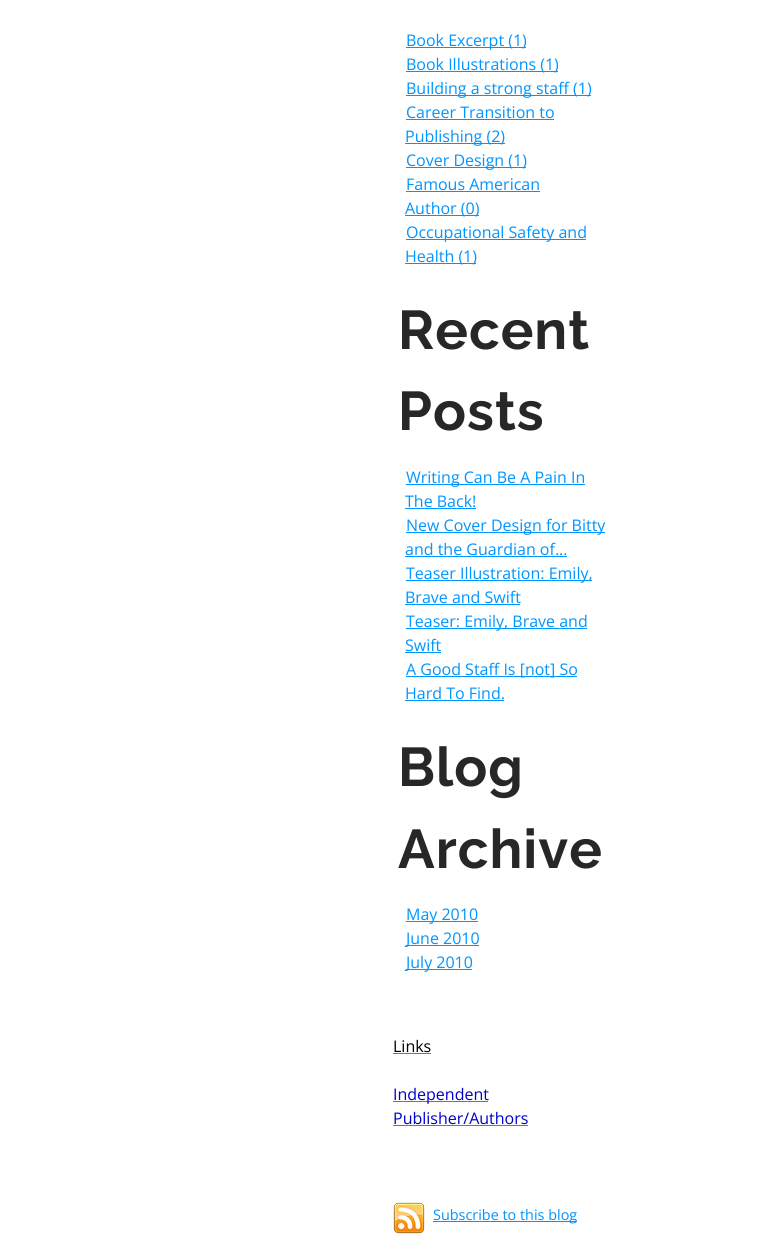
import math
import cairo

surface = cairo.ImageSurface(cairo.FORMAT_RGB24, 769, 1256)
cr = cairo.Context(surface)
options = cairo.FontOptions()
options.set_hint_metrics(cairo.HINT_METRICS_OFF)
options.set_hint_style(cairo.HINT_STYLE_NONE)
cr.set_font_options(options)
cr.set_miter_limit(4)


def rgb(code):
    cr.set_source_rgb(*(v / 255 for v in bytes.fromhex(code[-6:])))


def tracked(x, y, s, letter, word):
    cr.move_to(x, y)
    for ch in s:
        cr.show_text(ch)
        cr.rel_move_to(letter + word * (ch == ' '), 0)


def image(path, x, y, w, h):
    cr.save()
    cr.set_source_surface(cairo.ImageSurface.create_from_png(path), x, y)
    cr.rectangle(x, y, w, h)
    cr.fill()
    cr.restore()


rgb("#ffffff")
cr.paint()
for x, y, w, h, color in [
    (406, 47, 120, 1, "#0095ff"),
    (406, 71, 152, 1, "#0095ff"),
    (406, 95, 185, 1, "#0095ff"),
    (406, 119, 148, 1, "#0095ff"),
    (405, 143, 100, 1, "#0095ff"),
    (406, 167, 120, 1, "#0095ff"),
    (406, 191, 134, 1, "#0095ff"),
    (405, 215, 74, 1, "#0095ff"),
    (406, 239, 180, 1, "#0095ff"),
    (405, 263, 71, 1, "#0095ff"),
    (406, 484, 179, 1, "#0095ff"),
    (405, 508, 71, 1, "#0095ff"),
    (406, 532, 199, 1, "#0095ff"),
    (405, 556, 162, 1, "#0095ff"),
    (406, 580, 186, 1, "#0095ff"),
    (405, 604, 115, 1, "#0095ff"),
    (406, 628, 181, 1, "#0095ff"),
    (405, 652, 36, 1, "#0095ff"),
    (406, 676, 171, 1, "#0095ff"),
    (405, 700, 99, 1, "#0095ff"),
    (406, 921, 72, 1, "#0095ff"),
    (406, 945, 73, 1, "#0095ff"),
    (406, 969, 66, 1, "#0095ff"),
    (393, 1053, 38, 1, "#0095ff"),
    (393, 1101, 95, 1, "#0095ff"),
    (393, 1125, 135, 1, "#0095ff"),
]:
    rgb(color)
    cr.rectangle(x, y, w, h)
    cr.fill()
image("img/1.png", 393, 1202, 32, 32)
cr.rectangle(433, 1221, 144, 1)
cr.fill()
cr.select_font_face("Open Sans")
cr.set_font_size(16)
for x, y, s in [
    (406, 46, "Book Excerpt (1)"),
    (406, 70, "Book Illustrations (1)"),
    (406, 94, "Building a strong staff (1)"),
    (406, 118, "Career Transition to"),
    (405, 142, "Publishing (2)"),
    (406, 166, "Cover Design (1)"),
    (406, 190, "Famous American"),
    (405, 214, "Author (0)"),
    (406, 238, "Occupational Safety and"),
    (405, 262, "Health (1)"),
]:
    cr.move_to(x, y)
    cr.show_text(s)
cr.select_font_face("Raleway", cairo.FONT_SLANT_NORMAL, cairo.FONT_WEIGHT_BOLD)
cr.set_font_size(54.5)
rgb("#272727")
tracked(398, 349, "Recent", 1, 0)
tracked(398, 430, "Posts", 1, 0)
cr.select_font_face("Open Sans")
cr.set_font_size(16)
rgb("#0095ff")
for x, y, s in [
    (406, 483, "Writing Can Be A Pain In"),
    (405, 507, "The Back!"),
    (406, 531, "New Cover Design for Bitty"),
    (405, 555, "and the Guardian of..."),
    (406, 579, "Teaser Illustration: Emily,"),
    (405, 603, "Brave and Swift"),
    (406, 627, "Teaser: Emily, Brave and"),
    (405, 651, "Swift"),
    (406, 675, "A Good Staff Is [not] So"),
    (405, 699, "Hard To Find."),
]:
    cr.move_to(x, y)
    cr.show_text(s)
cr.select_font_face("Raleway", cairo.FONT_SLANT_NORMAL, cairo.FONT_WEIGHT_BOLD)
cr.set_font_size(54.5)
rgb("#272727")
tracked(398, 786, "Blog", 1, 0)
tracked(398, 868, "Archive", 1, 0)
cr.select_font_face("Open Sans")
cr.set_font_size(16)
rgb("#0095ff")
for x, y, s in [
    (406, 920, "May 2010"),
    (406, 944, "June 2010"),
    (406, 968, "July 2010"),
]:
    cr.move_to(x, y)
    cr.show_text(s)
rgb("#000000")
cr.move_to(393, 1052)
cr.show_text("Links")
rgb("#0000cc")
cr.move_to(393, 1100)
cr.show_text("Independent")
cr.move_to(393, 1124)
cr.show_text("Publisher/Authors")
cr.set_font_size(14.4)
rgb("#0095ff")
cr.move_to(433, 1220)
cr.show_text("Subscribe to this blog")
surface.write_to_png("page.png")
